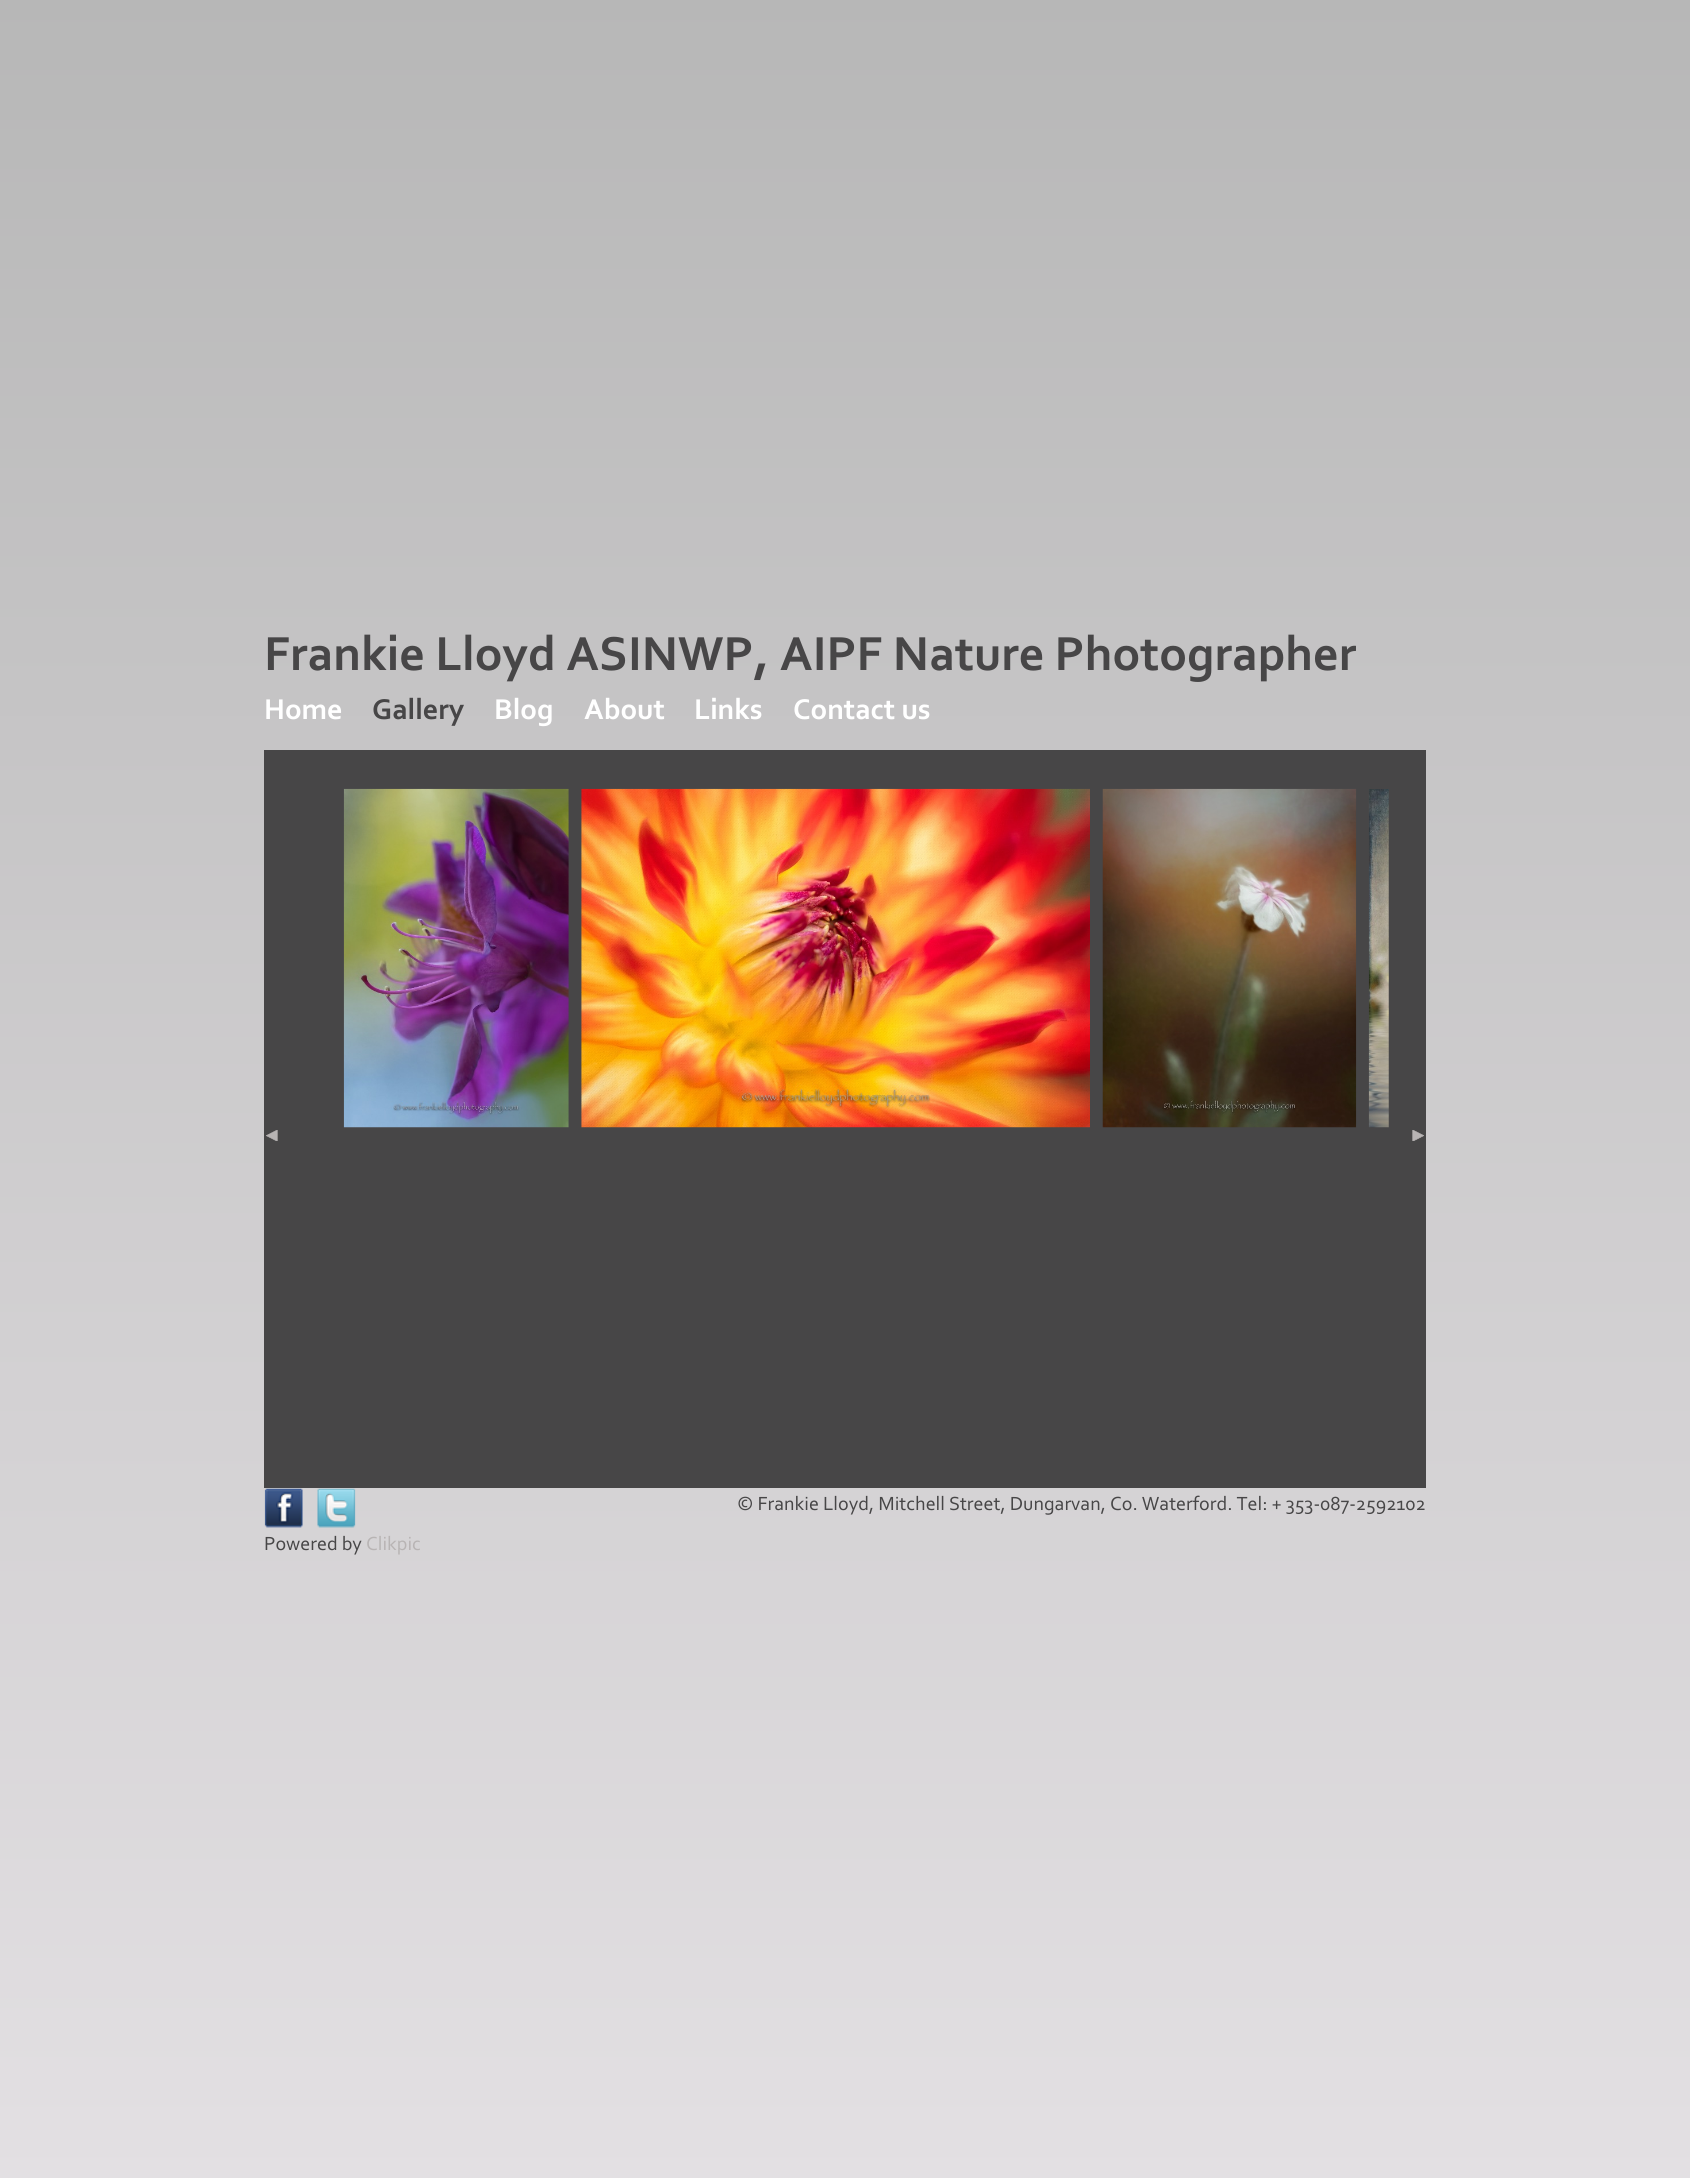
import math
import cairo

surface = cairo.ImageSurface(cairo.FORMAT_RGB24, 1690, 2178)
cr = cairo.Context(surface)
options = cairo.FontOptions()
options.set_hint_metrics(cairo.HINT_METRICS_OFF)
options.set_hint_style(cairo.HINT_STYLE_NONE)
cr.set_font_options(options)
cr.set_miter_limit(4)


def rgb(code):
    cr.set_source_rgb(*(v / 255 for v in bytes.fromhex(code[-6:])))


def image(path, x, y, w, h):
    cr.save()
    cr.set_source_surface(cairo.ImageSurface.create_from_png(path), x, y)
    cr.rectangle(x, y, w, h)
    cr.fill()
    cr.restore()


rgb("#ffffff")
cr.paint()
gradient = cairo.LinearGradient(845, 0, 845, 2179)
gradient.add_color_stop_rgba(0, 0.718, 0.718, 0.718, 1)
gradient.add_color_stop_rgba(1, 0.89, 0.878, 0.89, 1)
cr.set_source(gradient)
cr.rectangle(0, 0, 1690, 2178)
cr.fill()
rgb("#474647")
cr.rectangle(264, 750, 1162, 738)
cr.fill()
image("img/1.png", 343, 788, 226, 340)
image("img/2.png", 581, 788, 509, 340)
image("img/3.png", 1102, 788, 255, 340)
image("img/4.png", 1368, 789, 21, 339)
image("img/5.png", 266, 1130, 12, 11)
image("img/6.png", 1412, 1130, 12, 11)
image("img/7.png", 264, 1488, 39, 40)
image("img/8.png", 317, 1488, 39, 40)
cr.select_font_face("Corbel", cairo.FONT_SLANT_NORMAL, cairo.FONT_WEIGHT_BOLD)
cr.set_font_size(50)
cr.move_to(264, 670)
cr.show_text("Frankie Lloyd ASINWP, AIPF Nature Photographer")
cr.set_font_size(30)
rgb("#ffffff")
cr.move_to(264, 719)
cr.show_text("Home")
rgb("#474647")
cr.move_to(372, 719)
cr.show_text("Gallery")
rgb("#ffffff")
for x, y, s in [
    (494, 719, "Blog"),
    (584, 719, "About"),
    (694, 719, "Links"),
    (793, 719, "Contact us"),
]:
    cr.move_to(x, y)
    cr.show_text(s)
cr.select_font_face("Corbel")
cr.set_font_size(20)
rgb("#474647")
cr.move_to(737, 1510)
cr.show_text("© Frankie Lloyd, Mitchell Street, Dungarvan, Co. Waterford. Tel: + 353-087-2592102")
cr.move_to(264, 1550)
cr.show_text("Powered by")
rgb("#b8b4b4")
cr.move_to(366, 1550)
cr.show_text("Clikpic")
surface.write_to_png("page.png")
